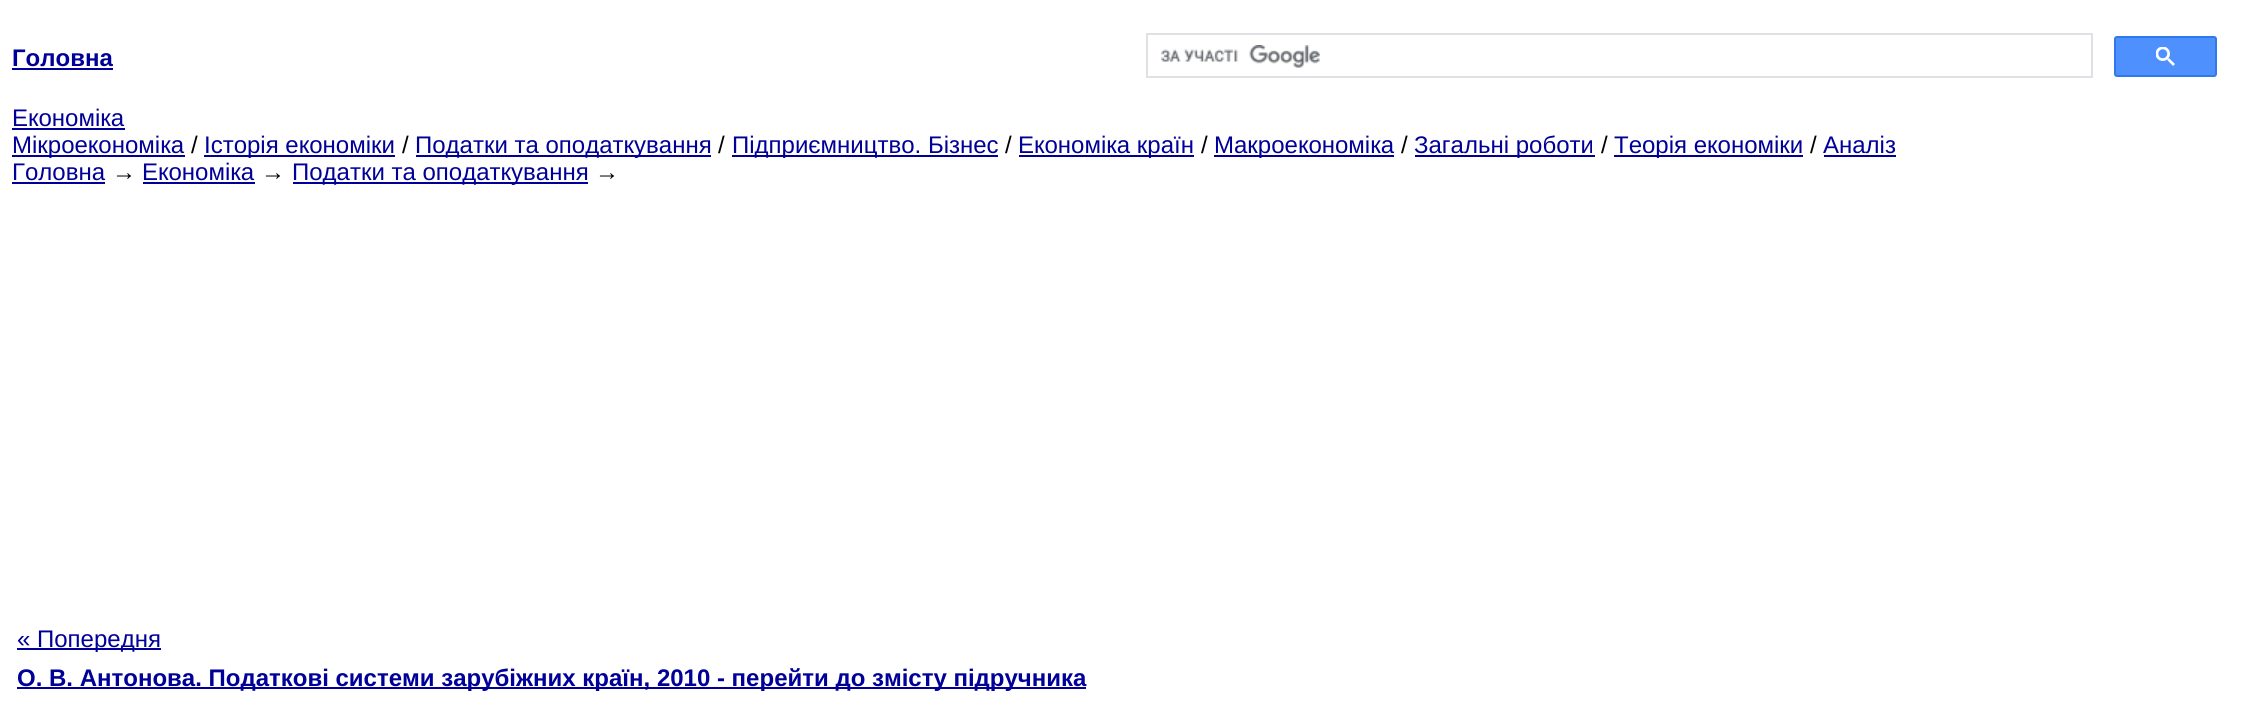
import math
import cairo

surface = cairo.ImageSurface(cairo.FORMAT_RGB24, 2250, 706)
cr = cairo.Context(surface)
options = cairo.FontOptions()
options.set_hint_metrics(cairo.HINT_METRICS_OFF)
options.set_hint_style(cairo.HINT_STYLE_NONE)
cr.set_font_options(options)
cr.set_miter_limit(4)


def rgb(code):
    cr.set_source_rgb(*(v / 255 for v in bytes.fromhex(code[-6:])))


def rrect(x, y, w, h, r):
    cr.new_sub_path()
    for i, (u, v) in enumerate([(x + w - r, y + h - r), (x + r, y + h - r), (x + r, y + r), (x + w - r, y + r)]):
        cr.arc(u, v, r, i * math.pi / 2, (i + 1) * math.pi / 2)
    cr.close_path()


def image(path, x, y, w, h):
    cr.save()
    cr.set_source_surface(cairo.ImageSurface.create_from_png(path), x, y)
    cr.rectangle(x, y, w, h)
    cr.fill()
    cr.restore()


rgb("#ffffff")
cr.paint()
rgb("#000099")
cr.rectangle(12, 68, 101, 2)
cr.fill()
cr.rectangle(1147, 34, 945, 43)
rgb("#dfe1e5")
cr.stroke()
image("img/1.png", 1161, 45, 159, 23)
rgb("#4d90fe")
rrect(2115, 37, 101, 39, 2)
cr.fill_preserve()
rgb("#3079ed")
cr.stroke()
image("img/2.png", 2156, 47, 19, 19)
for x, y, w, h, color in [
    (12, 128, 113, 2, "#000099"),
    (12, 155, 173, 2, "#000099"),
    (204, 155, 191, 2, "#000099"),
    (416, 155, 295, 2, "#000099"),
    (732, 155, 266, 2, "#000099"),
    (1019, 155, 175, 2, "#000099"),
    (1214, 155, 180, 2, "#000099"),
    (1415, 155, 180, 2, "#000099"),
    (1614, 155, 189, 2, "#000099"),
    (1824, 155, 72, 2, "#000099"),
    (12, 182, 93, 2, "#000099"),
    (143, 182, 112, 2, "#000099"),
    (293, 182, 295, 2, "#000099"),
    (17, 648, 144, 2, "#000099"),
    (17, 687, 1069, 2, "#000099"),
]:
    rgb(color)
    cr.rectangle(x, y, w, h)
    cr.fill()
cr.select_font_face("Liberation Sans", cairo.FONT_SLANT_NORMAL, cairo.FONT_WEIGHT_BOLD)
cr.set_font_size(24)
cr.move_to(12, 66)
cr.show_text("Головна")
cr.select_font_face("Liberation Sans")
cr.move_to(12, 126)
cr.show_text("Економіка")
cr.move_to(12, 153)
cr.show_text("Мікроекономіка")
rgb("#000000")
cr.move_to(191, 153)
cr.show_text("/")
rgb("#000099")
cr.move_to(204, 153)
cr.show_text("Історія економіки")
rgb("#000000")
cr.move_to(402, 153)
cr.show_text("/")
rgb("#000099")
cr.move_to(415, 153)
cr.show_text("Податки та оподаткування")
rgb("#000000")
cr.move_to(718, 153)
cr.show_text("/")
rgb("#000099")
cr.move_to(732, 153)
cr.show_text("Підприємництво. Бізнес")
rgb("#000000")
cr.move_to(1005, 153)
cr.show_text("/")
rgb("#000099")
cr.move_to(1018, 153)
cr.show_text("Економіка країн")
rgb("#000000")
cr.move_to(1201, 153)
cr.show_text("/")
rgb("#000099")
cr.move_to(1214, 153)
cr.show_text("Макроекономіка")
rgb("#000000")
cr.move_to(1401, 153)
cr.show_text("/")
rgb("#000099")
cr.move_to(1414, 153)
cr.show_text("Загальні роботи")
rgb("#000000")
cr.move_to(1601, 153)
cr.show_text("/")
rgb("#000099")
cr.move_to(1614, 153)
cr.show_text("Теорія економіки")
rgb("#000000")
cr.move_to(1810, 153)
cr.show_text("/")
rgb("#000099")
cr.move_to(1823, 153)
cr.show_text("Аналіз")
cr.move_to(12, 180)
cr.show_text("Головна")
rgb("#000000")
cr.move_to(112, 180)
cr.show_text("→")
rgb("#000099")
cr.move_to(142, 180)
cr.show_text("Економіка")
rgb("#000000")
cr.move_to(261, 180)
cr.show_text("→")
rgb("#000099")
cr.move_to(292, 180)
cr.show_text("Податки та оподаткування")
rgb("#000000")
cr.move_to(595, 180)
cr.show_text("→")
rgb("#000099")
cr.move_to(17, 647)
cr.show_text("« Попередня")
cr.select_font_face("Liberation Sans", cairo.FONT_SLANT_NORMAL, cairo.FONT_WEIGHT_BOLD)
cr.move_to(17, 686)
cr.show_text("О. В. Антонова. Податкові системи зарубіжних країн, 2010 - перейти до змісту підручника")
surface.write_to_png("page.png")
